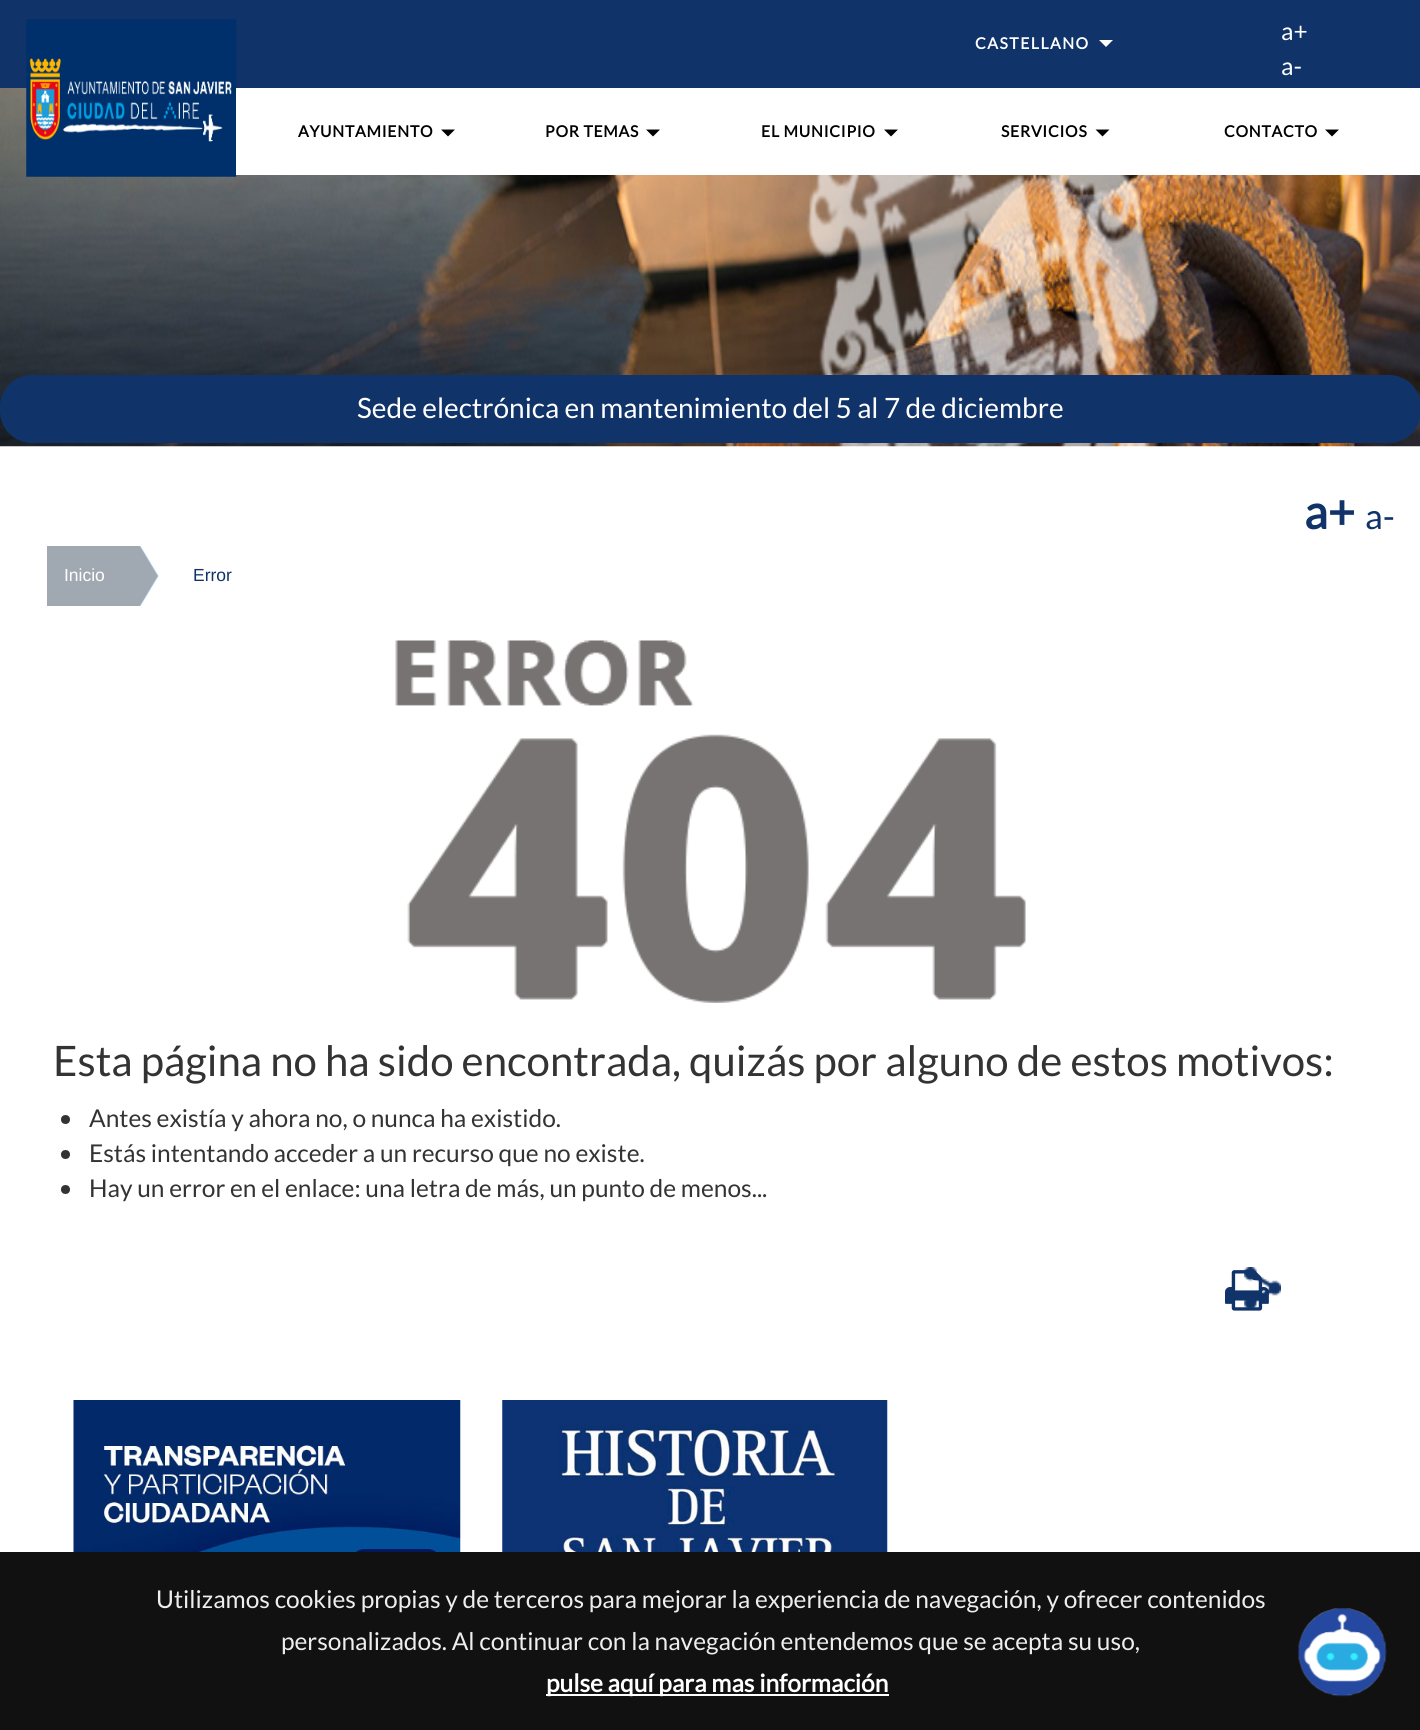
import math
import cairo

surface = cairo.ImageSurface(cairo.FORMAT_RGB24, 1420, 1730)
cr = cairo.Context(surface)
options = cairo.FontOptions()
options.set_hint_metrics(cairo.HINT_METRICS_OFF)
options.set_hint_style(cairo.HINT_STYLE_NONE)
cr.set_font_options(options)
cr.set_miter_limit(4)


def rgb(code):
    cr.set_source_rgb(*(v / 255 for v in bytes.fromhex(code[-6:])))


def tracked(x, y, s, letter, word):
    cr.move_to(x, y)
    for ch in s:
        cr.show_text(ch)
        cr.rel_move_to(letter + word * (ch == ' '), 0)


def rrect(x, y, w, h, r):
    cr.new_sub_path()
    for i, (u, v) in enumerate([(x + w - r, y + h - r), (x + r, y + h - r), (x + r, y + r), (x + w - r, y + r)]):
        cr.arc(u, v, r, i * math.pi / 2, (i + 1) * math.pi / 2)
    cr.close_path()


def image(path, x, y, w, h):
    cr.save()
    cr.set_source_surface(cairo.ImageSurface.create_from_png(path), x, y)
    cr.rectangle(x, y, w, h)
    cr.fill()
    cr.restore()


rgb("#ffffff")
cr.paint()
rgb("#103369")
cr.rectangle(0, 0, 1420, 88)
cr.fill()
rgb("#ffffff")
cr.new_path()
cr.move_to(1099, 40)
cr.line_to(1113, 40)
cr.line_to(1106, 47)
cr.close_path()
cr.fill()
image("img/2.png", 0, 88, 1420, 359)
image("img/1.png", 26, 19, 211, 158)
cr.rectangle(236, 88, 1184, 87)
cr.fill()
rgb("#000000")
cr.new_path()
cr.move_to(441, 129.5)
cr.line_to(455, 129.5)
cr.line_to(448, 136.5)
cr.close_path()
cr.fill()
cr.new_path()
cr.move_to(646, 129.5)
cr.line_to(660, 129.5)
cr.line_to(653, 136.5)
cr.close_path()
cr.fill()
cr.new_path()
cr.move_to(884, 129.5)
cr.line_to(898, 129.5)
cr.line_to(891, 136.5)
cr.close_path()
cr.fill()
cr.new_path()
cr.move_to(1095.5, 129.5)
cr.line_to(1109.5, 129.5)
cr.line_to(1102.5, 136.5)
cr.close_path()
cr.fill()
cr.new_path()
cr.move_to(1325, 129.5)
cr.line_to(1339, 129.5)
cr.line_to(1332, 136.5)
cr.close_path()
cr.fill()
rgb("#103369")
rrect(0, 375, 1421, 68, 32)
cr.fill()
rgb("#a0a9b1")
cr.rectangle(47, 546, 58, 60)
cr.fill()
rgb("#ddeeff")
cr.new_path()
cr.move_to(141, 546)
cr.line_to(159, 576)
cr.line_to(141, 606)
cr.line_to(107, 606)
cr.line_to(107, 546)
cr.close_path()
cr.fill()
rgb("#a0a9b1")
cr.new_path()
cr.move_to(140, 546)
cr.line_to(158, 576)
cr.line_to(140, 606)
cr.line_to(105, 606)
cr.line_to(105, 546)
cr.close_path()
cr.fill()
image("img/3.png", 395, 640, 631, 363)
rgb("#333333")
cr.arc(65.5, 1119.5, 4.5, 0, 2 * math.pi)
cr.fill()
cr.arc(65.5, 1154.5, 4.5, 0, 2 * math.pi)
cr.fill()
cr.arc(65.5, 1189.5, 4.5, 0, 2 * math.pi)
cr.fill()
image("img/4.png", 1244, 1267, 37, 41)
image("img/5.png", 1225, 1270, 44, 41)
image("img/6.png", 73, 1400, 388, 152)
image("img/7.png", 502, 1400, 386, 152)
rgb("#111111")
cr.rectangle(0, 1552, 1420, 178)
cr.fill()
rgb("#ffffff")
cr.rectangle(546, 1694, 343, 2)
cr.fill()
image("img/8.png", 1298, 1608, 89, 89)
cr.select_font_face("Lato", cairo.FONT_SLANT_NORMAL, cairo.FONT_WEIGHT_BOLD)
cr.set_font_size(15.75)
tracked(975, 49, "CASTELLANO", 1.5, 0)
cr.select_font_face("Lato")
cr.set_font_size(24.5)
cr.move_to(1281, 40)
cr.show_text("a+")
cr.move_to(1281, 75)
cr.show_text("a-")
cr.select_font_face("Lato", cairo.FONT_SLANT_NORMAL, cairo.FONT_WEIGHT_BOLD)
cr.set_font_size(15.75)
rgb("#000000")
for x, y, s in [
    (298, 137, "AYUNTAMIENTO"),
    (545, 137, "POR TEMAS"),
    (761, 137, "EL MUNICIPIO"),
    (1001, 137, "SERVICIOS"),
    (1224, 137, "CONTACTO"),
]:
    tracked(x, y, s, 0.75, 0)
cr.select_font_face("Lato")
cr.set_font_size(28)
rgb("#ffffff")
cr.move_to(357, 418)
cr.show_text("Sede electrónica en mantenimiento del 5 al 7 de diciembre")
cr.select_font_face("Lato", cairo.FONT_SLANT_NORMAL, cairo.FONT_WEIGHT_BOLD)
cr.set_font_size(47)
rgb("#103369")
cr.move_to(1304, 529)
cr.show_text("a+")
cr.select_font_face("Lato")
cr.set_font_size(35)
cr.move_to(1365, 529)
cr.show_text("a-")
cr.select_font_face("Liberation Sans")
cr.set_font_size(17.5)
rgb("#ffffff")
cr.move_to(64, 581)
cr.show_text("Inicio")
rgb("#103369")
cr.move_to(193, 581)
cr.show_text("Error")
cr.select_font_face("Lato")
cr.set_font_size(42)
rgb("#333333")
cr.move_to(53, 1076)
cr.show_text("Esta página no ha sido encontrada, quizás por alguno de estos motivos:")
cr.set_font_size(24.5)
for x, y, s in [
    (89, 1127, "Antes existía y ahora no, o nunca ha existido."),
    (89, 1162, "Estás intentando acceder a un recurso que no existe."),
    (89, 1197, "Hay un error en el enlace: una letra de más, un punto de menos..."),
]:
    cr.move_to(x, y)
    cr.show_text(s)
rgb("#eeeeee")
cr.move_to(156, 1608)
cr.show_text("Utilizamos cookies propias y de terceros para mejorar la experiencia de navegación, y ofrecer contenidos")
cr.move_to(281, 1650)
cr.show_text("personalizados. Al continuar con la navegación entendemos que se acepta su uso,")
cr.select_font_face("Lato", cairo.FONT_SLANT_NORMAL, cairo.FONT_WEIGHT_BOLD)
rgb("#ffffff")
cr.move_to(546, 1692)
cr.show_text("pulse aquí para mas información")
surface.write_to_png("page.png")
